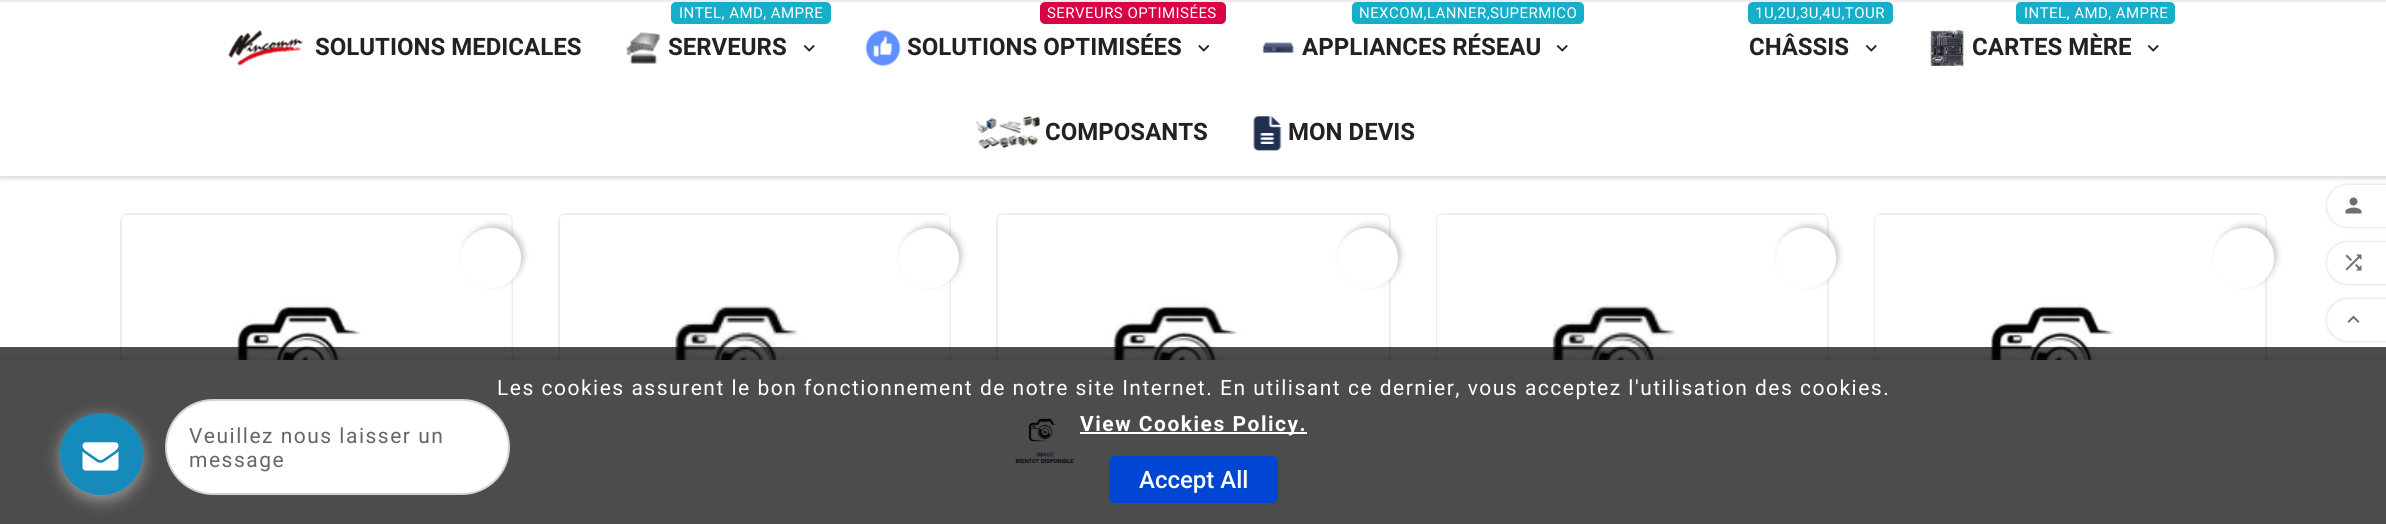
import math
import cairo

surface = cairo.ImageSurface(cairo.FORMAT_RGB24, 2386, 524)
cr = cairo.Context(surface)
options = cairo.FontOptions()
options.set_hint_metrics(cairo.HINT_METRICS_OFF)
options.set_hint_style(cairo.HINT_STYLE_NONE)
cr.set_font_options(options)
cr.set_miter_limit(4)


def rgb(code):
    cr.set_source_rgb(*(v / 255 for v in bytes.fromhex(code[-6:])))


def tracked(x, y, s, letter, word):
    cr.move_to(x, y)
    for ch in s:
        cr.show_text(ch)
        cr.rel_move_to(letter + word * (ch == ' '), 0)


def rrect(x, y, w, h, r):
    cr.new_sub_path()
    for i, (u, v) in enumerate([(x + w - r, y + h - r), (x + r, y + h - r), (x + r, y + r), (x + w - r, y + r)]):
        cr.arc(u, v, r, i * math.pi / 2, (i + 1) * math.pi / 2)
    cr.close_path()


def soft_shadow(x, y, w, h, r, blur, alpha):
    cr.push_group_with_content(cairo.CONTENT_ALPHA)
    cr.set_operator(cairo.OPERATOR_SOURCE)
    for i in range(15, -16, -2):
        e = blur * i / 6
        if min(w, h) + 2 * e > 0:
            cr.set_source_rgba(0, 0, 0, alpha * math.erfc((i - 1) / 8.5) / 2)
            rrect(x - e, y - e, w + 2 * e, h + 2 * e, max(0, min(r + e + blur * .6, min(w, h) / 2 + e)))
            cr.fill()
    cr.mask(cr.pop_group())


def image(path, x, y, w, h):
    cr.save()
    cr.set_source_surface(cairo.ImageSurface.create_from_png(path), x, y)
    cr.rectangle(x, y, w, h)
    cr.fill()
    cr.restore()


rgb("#ffffff")
cr.paint()
rgb("#000000")
soft_shadow(2327, 185, 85, 42, 21, 1.5, 0.2)
rgb("#ffffff")
cr.new_path()
cr.move_to(2348, 185)
cr.line_to(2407, 185)
cr.line_to(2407, 227)
cr.line_to(2348, 227)
cr.curve_to(2336.5, 227, 2327, 217.5, 2327, 206)
cr.curve_to(2327, 194.5, 2336.5, 185, 2348, 185)
cr.close_path()
cr.fill()
rgb("#808080")
soft_shadow(-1, 0, 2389, 179, 0, 2, 0.27)
rgb("#ffffff")
cr.rectangle(0, 2, 2386, 174)
cr.fill()
rgb("#ededed")
cr.rectangle(0, 0, 2386, 2)
cr.fill()
image("img/1.png", 228, 30, 75, 36)
rgb("#17aec9")
rrect(671, 2, 160, 22, 5)
cr.fill()
image("img/2.png", 626, 32, 35, 32)
image("img/3.png", 803, 44, 12, 8)
rgb("#d90244")
rrect(1040, 2, 186, 22, 5)
cr.fill()
image("img/4.png", 865, 30, 36, 36)
image("img/5.png", 1198, 44, 12, 8)
rgb("#17aec9")
rrect(1352, 2, 232, 22, 5)
cr.fill()
image("img/6.png", 1262, 41, 32, 13)
image("img/3.png", 1556, 44, 12, 8)
rrect(1748, 2, 145, 22, 5)
cr.fill()
image("img/3.png", 1865, 44, 12, 8)
rrect(2016, 2, 159, 22, 5)
cr.fill()
image("img/7.png", 1930, 29, 34, 37)
image("img/3.png", 2147, 44, 12, 8)
image("img/8.png", 975, 116, 65, 33)
image("img/9.png", 1252, 116, 30, 35)
image("img/10.png", 2345, 197, 17, 17)
rgb("#000000")
soft_shadow(2327, 242, 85, 42, 21, 1.5, 0.2)
rgb("#ffffff")
cr.new_path()
cr.move_to(2348, 242)
cr.line_to(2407, 242)
cr.line_to(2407, 284)
cr.line_to(2348, 284)
cr.curve_to(2336.5, 284, 2327, 274.5, 2327, 263)
cr.curve_to(2327, 251.5, 2336.5, 242, 2348, 242)
cr.close_path()
cr.fill()
image("img/11.png", 2345, 254, 17, 17)
rgb("#000000")
soft_shadow(2327, 299, 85, 42, 21, 1.5, 0.2)
rgb("#ffffff")
cr.new_path()
cr.move_to(2348, 299)
cr.line_to(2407, 299)
cr.line_to(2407, 341)
cr.line_to(2348, 341)
cr.curve_to(2336.5, 341, 2327, 331.5, 2327, 320)
cr.curve_to(2327, 308.5, 2336.5, 299, 2348, 299)
cr.close_path()
cr.fill()
image("img/12.png", 2347, 315, 13, 8)
rrect(121, 214, 391, 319, 7)
rgb("#eeeeee")
cr.stroke()
image("img/13.png", 122, 215, 390, 145)
rgb("#000000")
soft_shadow(464, 225, 60, 60, 30, 3, 0.2)
rgb("#ffffff")
cr.arc(491, 258, 30, 0, 2 * math.pi)
cr.fill()
rrect(559, 214, 391, 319, 7)
rgb("#eeeeee")
cr.stroke()
image("img/14.png", 560, 215, 390, 145)
rgb("#000000")
soft_shadow(902, 225, 60, 60, 30, 3, 0.2)
rgb("#ffffff")
cr.arc(929, 258, 30, 0, 2 * math.pi)
cr.fill()
rrect(997, 214, 393, 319, 7)
rgb("#eeeeee")
cr.stroke()
image("img/15.png", 998, 215, 391, 145)
rgb("#000000")
soft_shadow(1341, 225, 60, 60, 30, 3, 0.2)
rgb("#ffffff")
cr.arc(1368, 258, 30, 0, 2 * math.pi)
cr.fill()
rrect(1437, 214, 391, 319, 7)
rgb("#eeeeee")
cr.stroke()
image("img/16.png", 1437, 215, 390, 145)
rgb("#000000")
soft_shadow(1779, 225, 60, 60, 30, 3, 0.2)
rgb("#ffffff")
cr.arc(1806, 258, 30, 0, 2 * math.pi)
cr.fill()
rrect(1875, 214, 391, 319, 7)
rgb("#eeeeee")
cr.stroke()
image("img/17.png", 1875, 215, 390, 145)
rgb("#000000")
soft_shadow(2217, 225, 60, 60, 30, 3, 0.2)
rgb("#ffffff")
cr.arc(2244, 258, 30, 0, 2 * math.pi)
cr.fill()
rgb("#7a7a7a")
soft_shadow(-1, 357, 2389, 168, 0, 1.5, 0.18)
rgb("#ffffff")
cr.rectangle(0, 360, 2386, 164)
cr.fill()
image("img/18.png", 1015, 418, 59, 46)
cr.set_source_rgba(0, 0, 0, 0.7)
cr.rectangle(0, 347, 2386, 177)
cr.fill()
rgb("#999999")
soft_shadow(60, 417, 83, 83, 41.5, 7.5, 1)
rgb("#158bbb")
rrect(60, 413, 83, 82, 41)
cr.fill()
image("img/19.png", 82, 442, 37, 29)
rgb("#ffffff")
rrect(166, 400, 343, 94, 47)
cr.fill_preserve()
rgb("#d3d3d3")
cr.stroke()
rgb("#ffffff")
cr.rectangle(1080, 432, 227, 2)
cr.fill()
rgb("#0046d2")
rrect(1109, 456, 169, 47, 6)
cr.fill()
cr.select_font_face("Roboto", cairo.FONT_SLANT_NORMAL, cairo.FONT_WEIGHT_BOLD)
cr.set_font_size(24)
rgb("#222222")
cr.move_to(315, 55)
cr.show_text("SOLUTIONS MEDICALES")
cr.select_font_face("Roboto")
cr.set_font_size(15)
rgb("#ffffff")
tracked(679, 18, "INTEL, AMD, AMPRE", 0.45, 0)
cr.select_font_face("Roboto", cairo.FONT_SLANT_NORMAL, cairo.FONT_WEIGHT_BOLD)
cr.set_font_size(24)
rgb("#222222")
cr.move_to(668, 55)
cr.show_text("SERVEURS")
cr.select_font_face("Roboto")
cr.set_font_size(15)
rgb("#ffffff")
tracked(1047, 18, "SERVEURS OPTIMISÉES", 0.45, 0)
cr.select_font_face("Roboto", cairo.FONT_SLANT_NORMAL, cairo.FONT_WEIGHT_BOLD)
cr.set_font_size(24)
rgb("#222222")
cr.move_to(907, 55)
cr.show_text("SOLUTIONS OPTIMISÉES")
cr.select_font_face("Roboto")
cr.set_font_size(15)
rgb("#ffffff")
tracked(1359, 18, "NEXCOM,LANNER,SUPERMICO", 0.45, 0)
cr.select_font_face("Roboto", cairo.FONT_SLANT_NORMAL, cairo.FONT_WEIGHT_BOLD)
cr.set_font_size(24)
rgb("#222222")
cr.move_to(1302, 55)
cr.show_text("APPLIANCES RÉSEAU")
cr.select_font_face("Roboto")
cr.set_font_size(15)
rgb("#ffffff")
tracked(1755, 18, "1U,2U,3U,4U,TOUR", 0.45, 0)
cr.select_font_face("Roboto", cairo.FONT_SLANT_NORMAL, cairo.FONT_WEIGHT_BOLD)
cr.set_font_size(24)
rgb("#222222")
cr.move_to(1749, 55)
cr.show_text("CHÂSSIS")
cr.select_font_face("Roboto")
cr.set_font_size(15)
rgb("#ffffff")
tracked(2024, 18, "INTEL, AMD, AMPRE", 0.45, 0)
cr.select_font_face("Roboto", cairo.FONT_SLANT_NORMAL, cairo.FONT_WEIGHT_BOLD)
cr.set_font_size(24)
rgb("#222222")
for x, y, s in [
    (1972, 55, "CARTES MÈRE"),
    (1045, 140, "COMPOSANTS"),
    (1288, 140, "MON DEVIS"),
]:
    cr.move_to(x, y)
    cr.show_text(s)
cr.select_font_face("Roboto")
cr.set_font_size(21)
rgb("#666666")
tracked(189, 443, "Veuillez nous laisser un", 1.5, 0)
tracked(189, 467, "message", 1.5, 0)
rgb("#ffffff")
tracked(497, 395, "Les cookies assurent le bon fonctionnement de notre site Internet. En utilisant ce dernier, vous acceptez l'utilisation des cookies.", 1.5, 0)
cr.select_font_face("Roboto", cairo.FONT_SLANT_NORMAL, cairo.FONT_WEIGHT_BOLD)
tracked(1080, 431, "View Cookies Policy.", 1.5, 0)
cr.select_font_face("Roboto Medium")
cr.set_font_size(24)
cr.move_to(1139, 488)
cr.show_text("Accept All")
surface.write_to_png("page.png")
